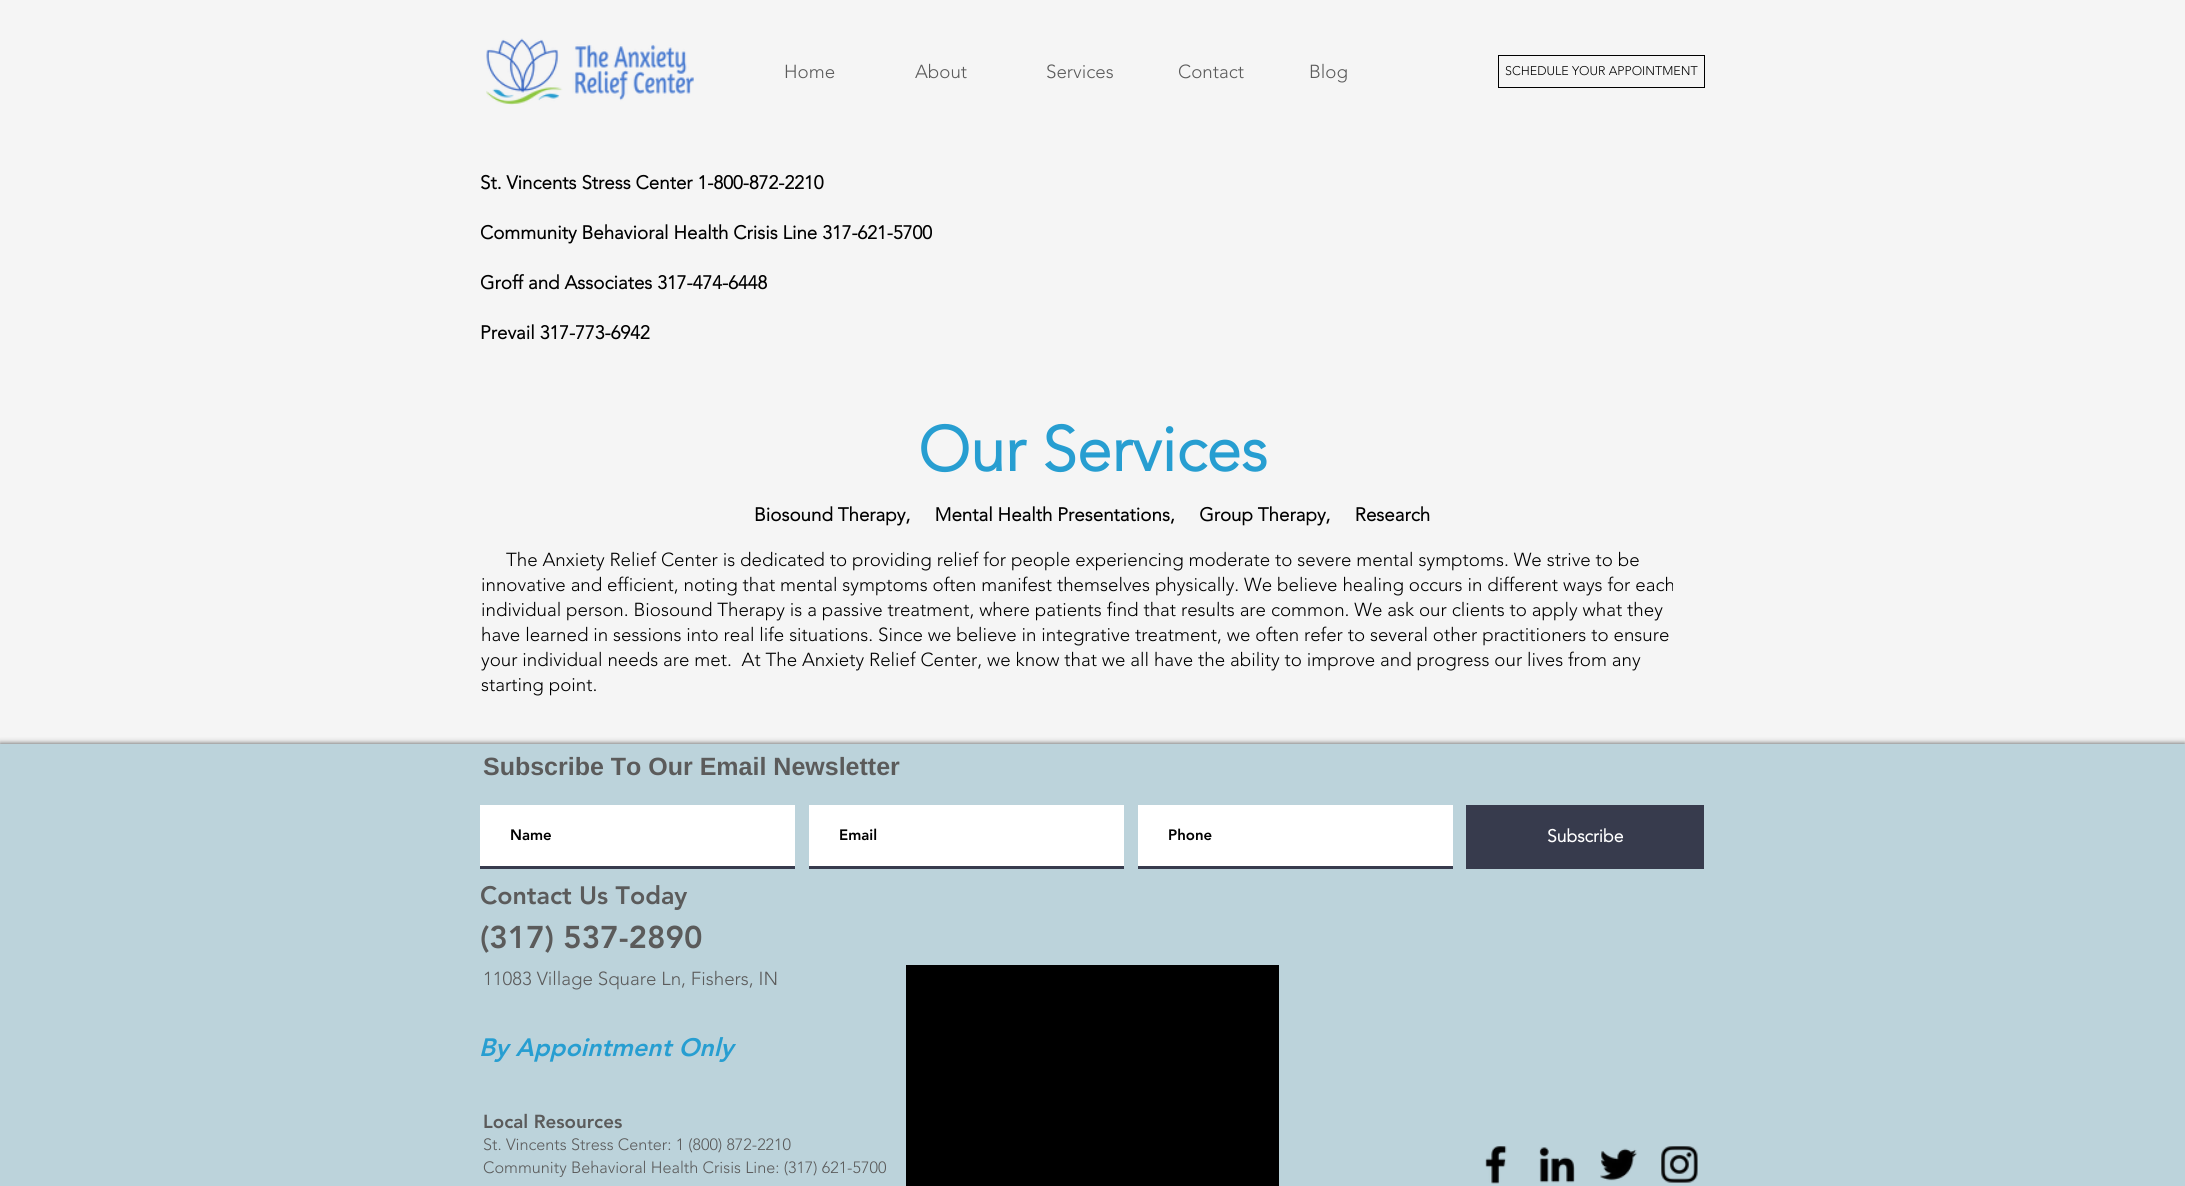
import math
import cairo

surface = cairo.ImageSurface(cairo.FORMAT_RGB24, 2185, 1186)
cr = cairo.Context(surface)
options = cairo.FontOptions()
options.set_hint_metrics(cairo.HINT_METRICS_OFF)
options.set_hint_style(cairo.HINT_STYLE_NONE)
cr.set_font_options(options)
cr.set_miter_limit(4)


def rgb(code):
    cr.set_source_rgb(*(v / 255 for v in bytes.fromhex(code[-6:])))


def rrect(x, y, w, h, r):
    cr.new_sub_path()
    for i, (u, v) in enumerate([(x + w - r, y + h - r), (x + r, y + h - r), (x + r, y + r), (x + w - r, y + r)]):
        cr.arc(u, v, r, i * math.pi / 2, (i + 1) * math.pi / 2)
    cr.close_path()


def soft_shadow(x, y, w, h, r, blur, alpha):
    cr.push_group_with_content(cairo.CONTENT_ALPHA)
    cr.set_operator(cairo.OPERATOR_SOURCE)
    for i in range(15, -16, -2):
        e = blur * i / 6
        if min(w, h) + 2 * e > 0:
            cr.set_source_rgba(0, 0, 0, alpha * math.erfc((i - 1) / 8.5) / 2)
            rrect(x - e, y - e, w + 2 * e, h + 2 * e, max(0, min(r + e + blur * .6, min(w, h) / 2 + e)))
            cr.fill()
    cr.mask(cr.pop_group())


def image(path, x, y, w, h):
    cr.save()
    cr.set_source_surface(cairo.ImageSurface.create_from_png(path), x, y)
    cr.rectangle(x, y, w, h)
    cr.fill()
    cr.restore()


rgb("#f5f5f5")
cr.paint()
image("img/1.png", 486, 38, 208, 67)
cr.rectangle(1498.5, 55.5, 206, 32)
rgb("#000000")
cr.set_line_width(1)
cr.stroke()
rgb("#000000")
soft_shadow(0, 744, 2185, 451, 0, 3, 0.7)
for x, y, w, h, color in [
    (0, 744, 2185, 442, "#bcd3db"),
    (480, 805, 315, 61, "#ffffff"),
    (480, 866, 315, 3, "#373b4d"),
    (809, 805, 315, 61, "#ffffff"),
    (809, 866, 315, 3, "#373b4d"),
    (1138, 805, 315, 61, "#ffffff"),
    (1138, 866, 315, 3, "#373b4d"),
    (1466, 805, 238, 64, "#373b4d"),
    (906, 965, 373, 221, "#000000"),
]:
    rgb(color)
    cr.rectangle(x, y, w, h)
    cr.fill()
image("img/2.png", 1485, 1146, 22, 38)
image("img/3.png", 1539, 1147, 36, 36)
image("img/4.png", 1600, 1148, 38, 33)
image("img/5.png", 1661, 1146, 37, 37)
cr.select_font_face("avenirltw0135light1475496 Light")
cr.set_font_size(18.75)
rgb("#5b5b5b")
for x, y, s in [
    (784, 78, "Home"),
    (915, 78, "About"),
    (1046, 78, "Services"),
    (1178, 78, "Contact"),
    (1309, 78, "Blog"),
]:
    cr.move_to(x, y)
    cr.show_text(s)
cr.set_font_size(12.5)
rgb("#000000")
cr.move_to(1505, 75)
cr.show_text("SCHEDULE YOUR APPOINTMENT")
cr.select_font_face("avenirltw0135light1475496", cairo.FONT_SLANT_NORMAL, cairo.FONT_WEIGHT_BOLD)
cr.set_font_size(18.75)
for x, y, s in [
    (480, 189, "St. Vincents Stress Center 1-800-872-2210"),
    (480, 239, "Community Behavioral Health Crisis Line 317-621-5700"),
    (480, 289, "Groff and Associates 317-474-6448"),
    (480, 339, "Prevail 317-773-6942"),
]:
    cr.move_to(x, y)
    cr.show_text(s)
cr.set_font_size(62.5)
rgb("#279ed1")
cr.move_to(918, 471)
cr.show_text("Our Services")
cr.set_font_size(18.75)
rgb("#000000")
cr.move_to(754, 521)
cr.show_text("Biosound Therapy,     Mental Health Presentations,     Group Therapy,     Research")
cr.select_font_face("avenirltw0135light1475496 Light")
for x, y, s in [
    (506, 566, "The Anxiety Relief Center is dedicated to providing relief for people experiencing moderate to severe mental symptoms. We strive to be"),
    (481, 591, "innovative and efficient, noting that mental symptoms often manifest themselves physically. We believe healing occurs in different ways for each"),
    (481, 616, "individual person. Biosound Therapy is a passive treatment, where patients find that results are common. We ask our clients to apply what they"),
    (481, 641, "have learned in sessions into real life situations. Since we believe in integrative treatment, we often refer to several other practitioners to ensure"),
    (481, 666, "your individual needs are met.  At The Anxiety Relief Center, we know that we all have the ability to improve and progress our lives from any"),
    (481, 691, "starting point."),
]:
    cr.move_to(x, y)
    cr.show_text(s)
cr.select_font_face("Liberation Sans", cairo.FONT_SLANT_NORMAL, cairo.FONT_WEIGHT_BOLD)
cr.set_font_size(25)
rgb("#5b5b5b")
cr.move_to(483, 775)
cr.show_text("Subscribe To Our Email Newsletter")
cr.select_font_face("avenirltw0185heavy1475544 Black")
cr.set_font_size(15)
rgb("#000000")
for x, y, s in [
    (510, 840, "Name"),
    (839, 840, "Email"),
    (1168, 840, "Phone"),
]:
    cr.move_to(x, y)
    cr.show_text(s)
cr.select_font_face("avenirltw0135light1475496", cairo.FONT_SLANT_NORMAL, cairo.FONT_WEIGHT_BOLD)
cr.set_font_size(17.5)
rgb("#ffffff")
cr.move_to(1547, 842)
cr.show_text("Subscribe")
cr.select_font_face("avenirltw0185heavy1475544 Black")
cr.set_font_size(25)
rgb("#5b5b5b")
cr.move_to(480, 904)
cr.show_text("Contact Us Today")
cr.set_font_size(31.25)
cr.move_to(480, 948)
cr.show_text("(317) 537-2890")
cr.select_font_face("avenirltw0135light1475496 Light")
cr.set_font_size(18.75)
cr.move_to(483, 985)
cr.show_text("11083 Village Square Ln, Fishers, IN")
cr.select_font_face("avenirltw0185heavy1475544 Black", cairo.FONT_SLANT_ITALIC)
cr.set_font_size(25)
rgb("#279ed1")
cr.move_to(479, 1056)
cr.show_text("By Appointment Only")
cr.select_font_face("avenirltw0185heavy1475544 Black")
cr.set_font_size(18.75)
rgb("#5b5b5b")
cr.move_to(483, 1128)
cr.show_text("Local Resources")
cr.select_font_face("avenirltw0135light1475496 Light")
cr.set_font_size(16.25)
cr.move_to(483, 1150)
cr.show_text("St. Vincents Stress Center: 1 (800) 872-2210")
cr.move_to(483, 1173)
cr.show_text("Community Behavioral Health Crisis Line: (317) 621-5700")
surface.write_to_png("page.png")
